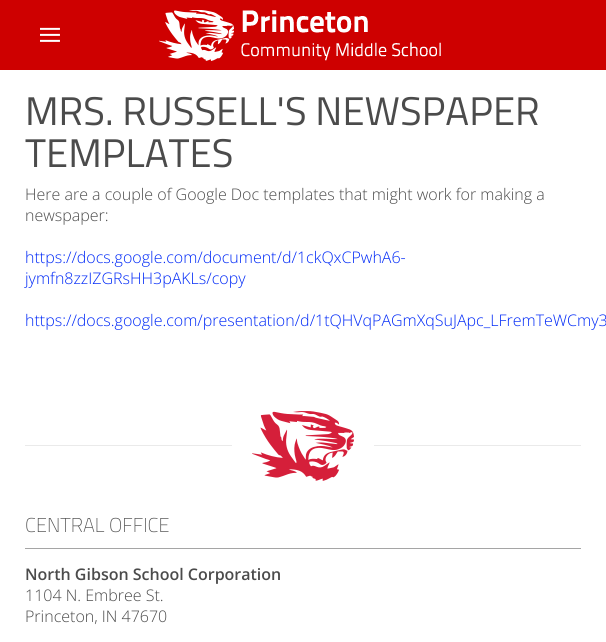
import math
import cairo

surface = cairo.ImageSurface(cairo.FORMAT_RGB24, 606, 642)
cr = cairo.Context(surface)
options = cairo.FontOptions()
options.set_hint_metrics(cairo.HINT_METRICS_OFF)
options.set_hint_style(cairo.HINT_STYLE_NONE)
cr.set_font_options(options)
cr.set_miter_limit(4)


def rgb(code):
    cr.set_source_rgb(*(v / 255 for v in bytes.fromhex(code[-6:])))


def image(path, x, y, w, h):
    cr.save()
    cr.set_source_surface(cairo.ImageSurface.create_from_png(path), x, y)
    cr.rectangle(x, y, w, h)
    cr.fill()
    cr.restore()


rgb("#ffffff")
cr.paint()
rgb("#ce0000")
cr.rectangle(0, 0, 606, 70)
cr.fill()
image("img/1.png", 40, 27, 20, 15)
image("img/2.png", 159, 10, 282, 51)
rgb("#eaeaea")
cr.rectangle(25, 445, 207, 1)
cr.fill()
image("img/3.png", 252, 411, 102, 70)
cr.rectangle(374, 445, 207, 1)
cr.fill()
rgb("#a5a5a5")
cr.rectangle(25, 548, 556, 1)
cr.fill()
cr.select_font_face("Titillium Web")
cr.set_font_size(40)
rgb("#4b4b4b")
cr.move_to(25, 125)
cr.show_text("MRS. RUSSELL'S NEWSPAPER")
cr.move_to(25, 167)
cr.show_text("TEMPLATES")
cr.select_font_face("Open Sans Light")
cr.set_font_size(16)
cr.move_to(25, 200)
cr.show_text("Here are a couple of Google Doc templates that might work for making a")
cr.move_to(25, 221)
cr.show_text("newspaper:")
rgb("#0029f7")
for x, y, s in [
    (25, 263, "https://docs.google.com/document/d/1ckQxCPwhA6-"),
    (25, 284, "jymfn8zzIZGRsHH3pAKLs/copy"),
    (25, 326, "https://docs.google.com/presentation/d/1tQHVqPAGmXqSuJApc_LFremTeWCmy3"),
]:
    cr.move_to(x, y)
    cr.show_text(s)
cr.select_font_face("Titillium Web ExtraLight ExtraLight")
cr.set_font_size(20)
rgb("#4b4b4b")
cr.move_to(25, 532)
cr.show_text("CENTRAL OFFICE")
cr.select_font_face("Open Sans SemiBold")
cr.set_font_size(16)
cr.move_to(25, 580)
cr.show_text("North Gibson School Corporation")
cr.select_font_face("Open Sans Light")
cr.move_to(25, 601)
cr.show_text("1104 N. Embree St.")
cr.move_to(25, 622)
cr.show_text("Princeton, IN 47670")
surface.write_to_png("page.png")
